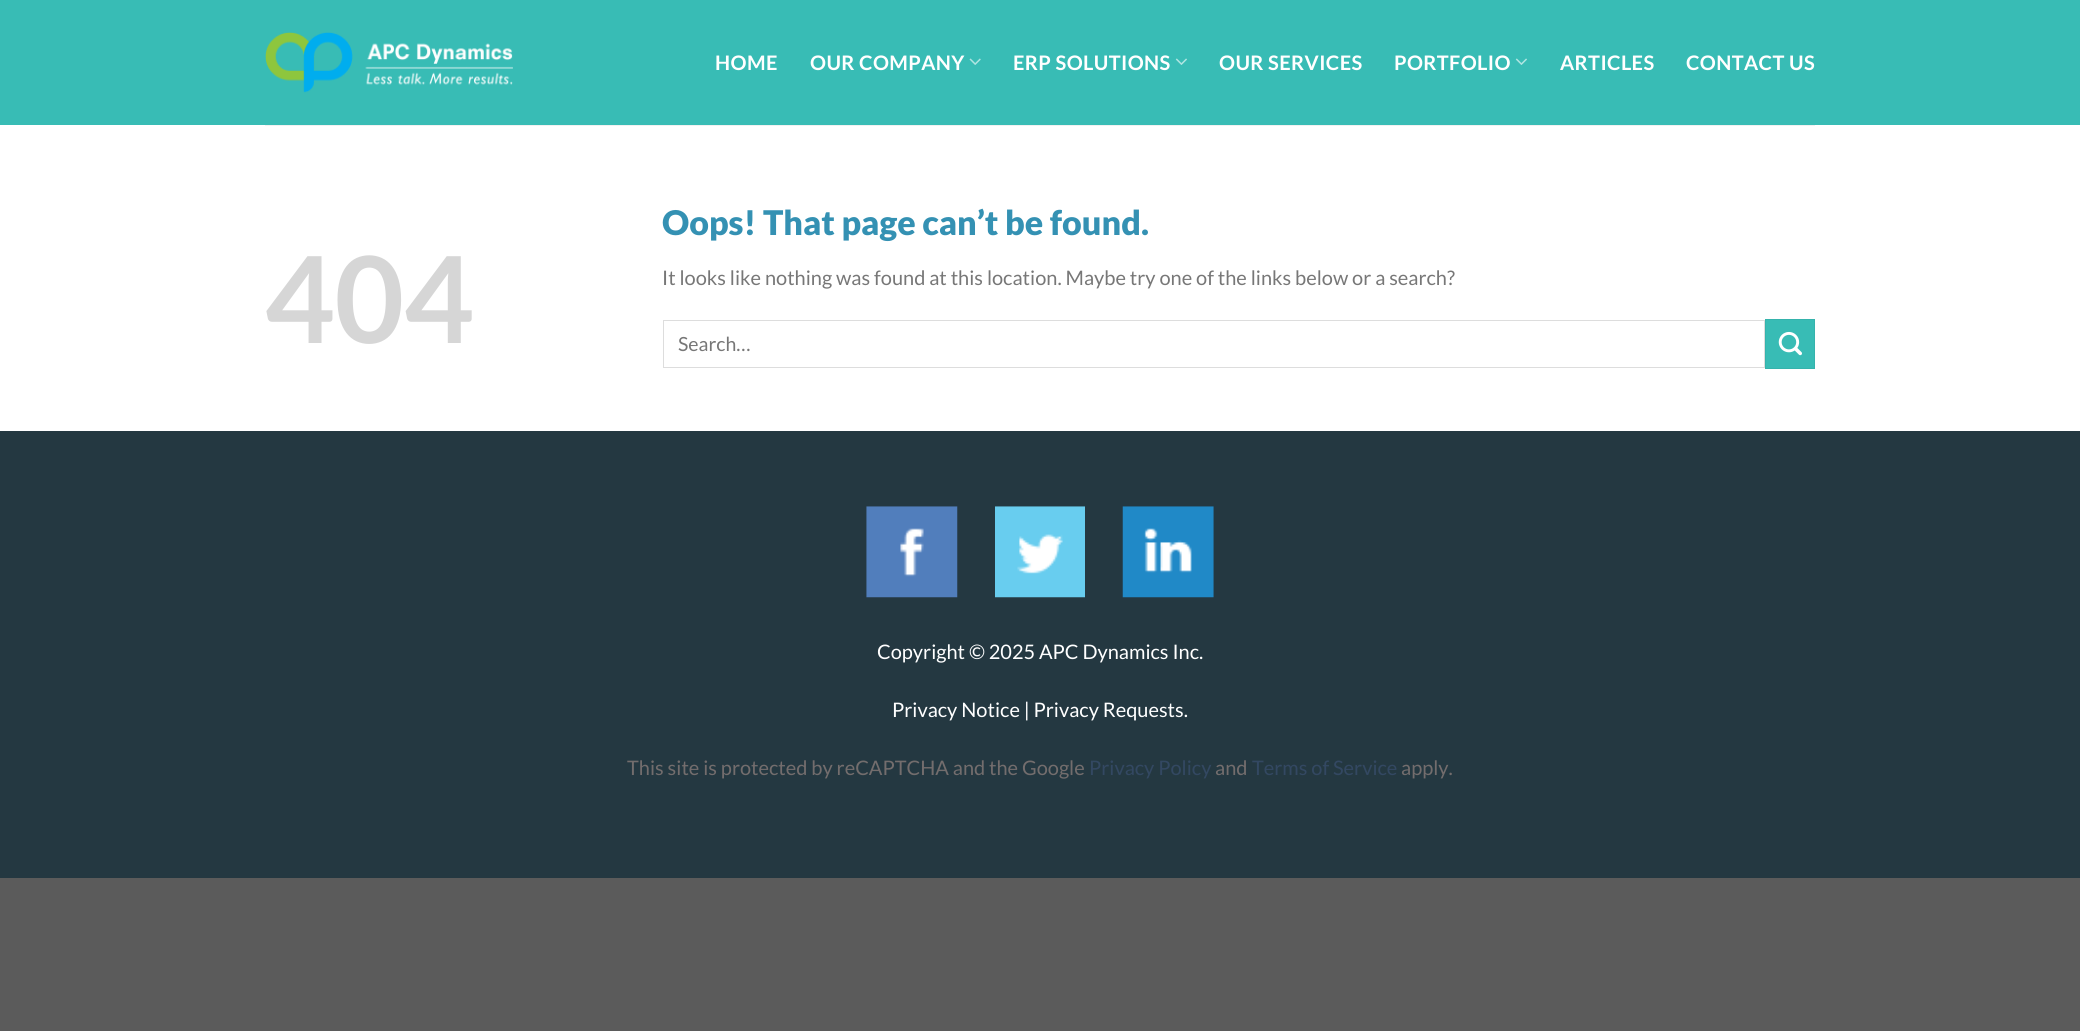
import math
import cairo

surface = cairo.ImageSurface(cairo.FORMAT_RGB24, 2080, 1031)
cr = cairo.Context(surface)
options = cairo.FontOptions()
options.set_hint_metrics(cairo.HINT_METRICS_OFF)
options.set_hint_style(cairo.HINT_STYLE_NONE)
cr.set_font_options(options)
cr.set_miter_limit(4)


def rgb(code):
    cr.set_source_rgb(*(v / 255 for v in bytes.fromhex(code[-6:])))


def tracked(x, y, s, letter, word):
    cr.move_to(x, y)
    for ch in s:
        cr.show_text(ch)
        cr.rel_move_to(letter + word * (ch == ' '), 0)


def image(path, x, y, w, h):
    cr.save()
    cr.set_source_surface(cairo.ImageSurface.create_from_png(path), x, y)
    cr.rectangle(x, y, w, h)
    cr.fill()
    cr.restore()


rgb("#5b5b5b")
cr.paint()
rgb("#ffffff")
cr.rectangle(0, 125, 2080, 306)
cr.fill()
rgb("#38bcb5")
cr.rectangle(0, 0, 2080, 125)
cr.fill()
image("img/1.png", 265, 32, 248, 61)
image("img/2.png", 969, 58, 12, 7)
image("img/3.png", 1175, 58, 12, 7)
image("img/3.png", 1515, 58, 12, 7)
rgb("#f1f1f1")
cr.rectangle(265, 125, 1550, 1)
cr.fill()
cr.rectangle(663.5, 320.5, 1101, 47)
rgb("#dddddd")
cr.set_line_width(1)
cr.stroke()
rgb("#38bcb5")
cr.rectangle(1765.5, 319.5, 49, 49)
cr.fill_preserve()
rgb("#35b3ac")
cr.stroke()
image("img/4.png", 1778, 331, 24, 25)
rgb("#243841")
cr.rectangle(0, 431, 2080, 447)
cr.fill()
image("img/5.png", 866, 506, 92, 92)
image("img/6.png", 995, 506, 90, 92)
image("img/7.png", 1122, 506, 92, 92)
cr.select_font_face("Lato", cairo.FONT_SLANT_NORMAL, cairo.FONT_WEIGHT_BOLD)
cr.set_font_size(20)
rgb("#ffffff")
for x, y, s in [
    (715, 70, "HOME"),
    (810, 70, "OUR COMPANY"),
    (1013, 70, "ERP SOLUTIONS"),
    (1219, 70, "OUR SERVICES"),
    (1394, 70, "PORTFOLIO"),
    (1560, 70, "ARTICLES"),
    (1686, 70, "CONTACT US"),
]:
    tracked(x, y, s, 0.4, 0)
cr.set_font_size(120)
rgb("#d6d6d6")
cr.move_to(265, 343)
cr.show_text("404")
cr.select_font_face("Lato Black")
cr.set_font_size(34)
rgb("#3491b3")
cr.move_to(662, 235)
cr.show_text("Oops! That page can’t be found.")
cr.select_font_face("Lato")
cr.set_font_size(20)
rgb("#777777")
cr.move_to(662, 285)
cr.show_text("It looks like nothing was found at this location. Maybe try one of the links below or a search?")
cr.set_font_size(19.5)
cr.move_to(678, 351)
cr.show_text("Search…")
cr.set_font_size(20)
rgb("#ffffff")
cr.move_to(877, 659)
cr.show_text("Copyright © 2025 APC Dynamics Inc.")
cr.move_to(892, 717)
cr.show_text("Privacy Notice | Privacy Requests.")
rgb("#736d6d")
cr.move_to(627, 775)
cr.show_text("This site is protected by reCAPTCHA and the Google")
rgb("#334862")
cr.move_to(1089, 775)
cr.show_text("Privacy Policy")
rgb("#736d6d")
cr.move_to(1215, 775)
cr.show_text("and")
rgb("#334862")
cr.move_to(1252, 775)
cr.show_text("Terms of Service")
rgb("#736d6d")
cr.move_to(1401, 775)
cr.show_text("apply.")
surface.write_to_png("page.png")
